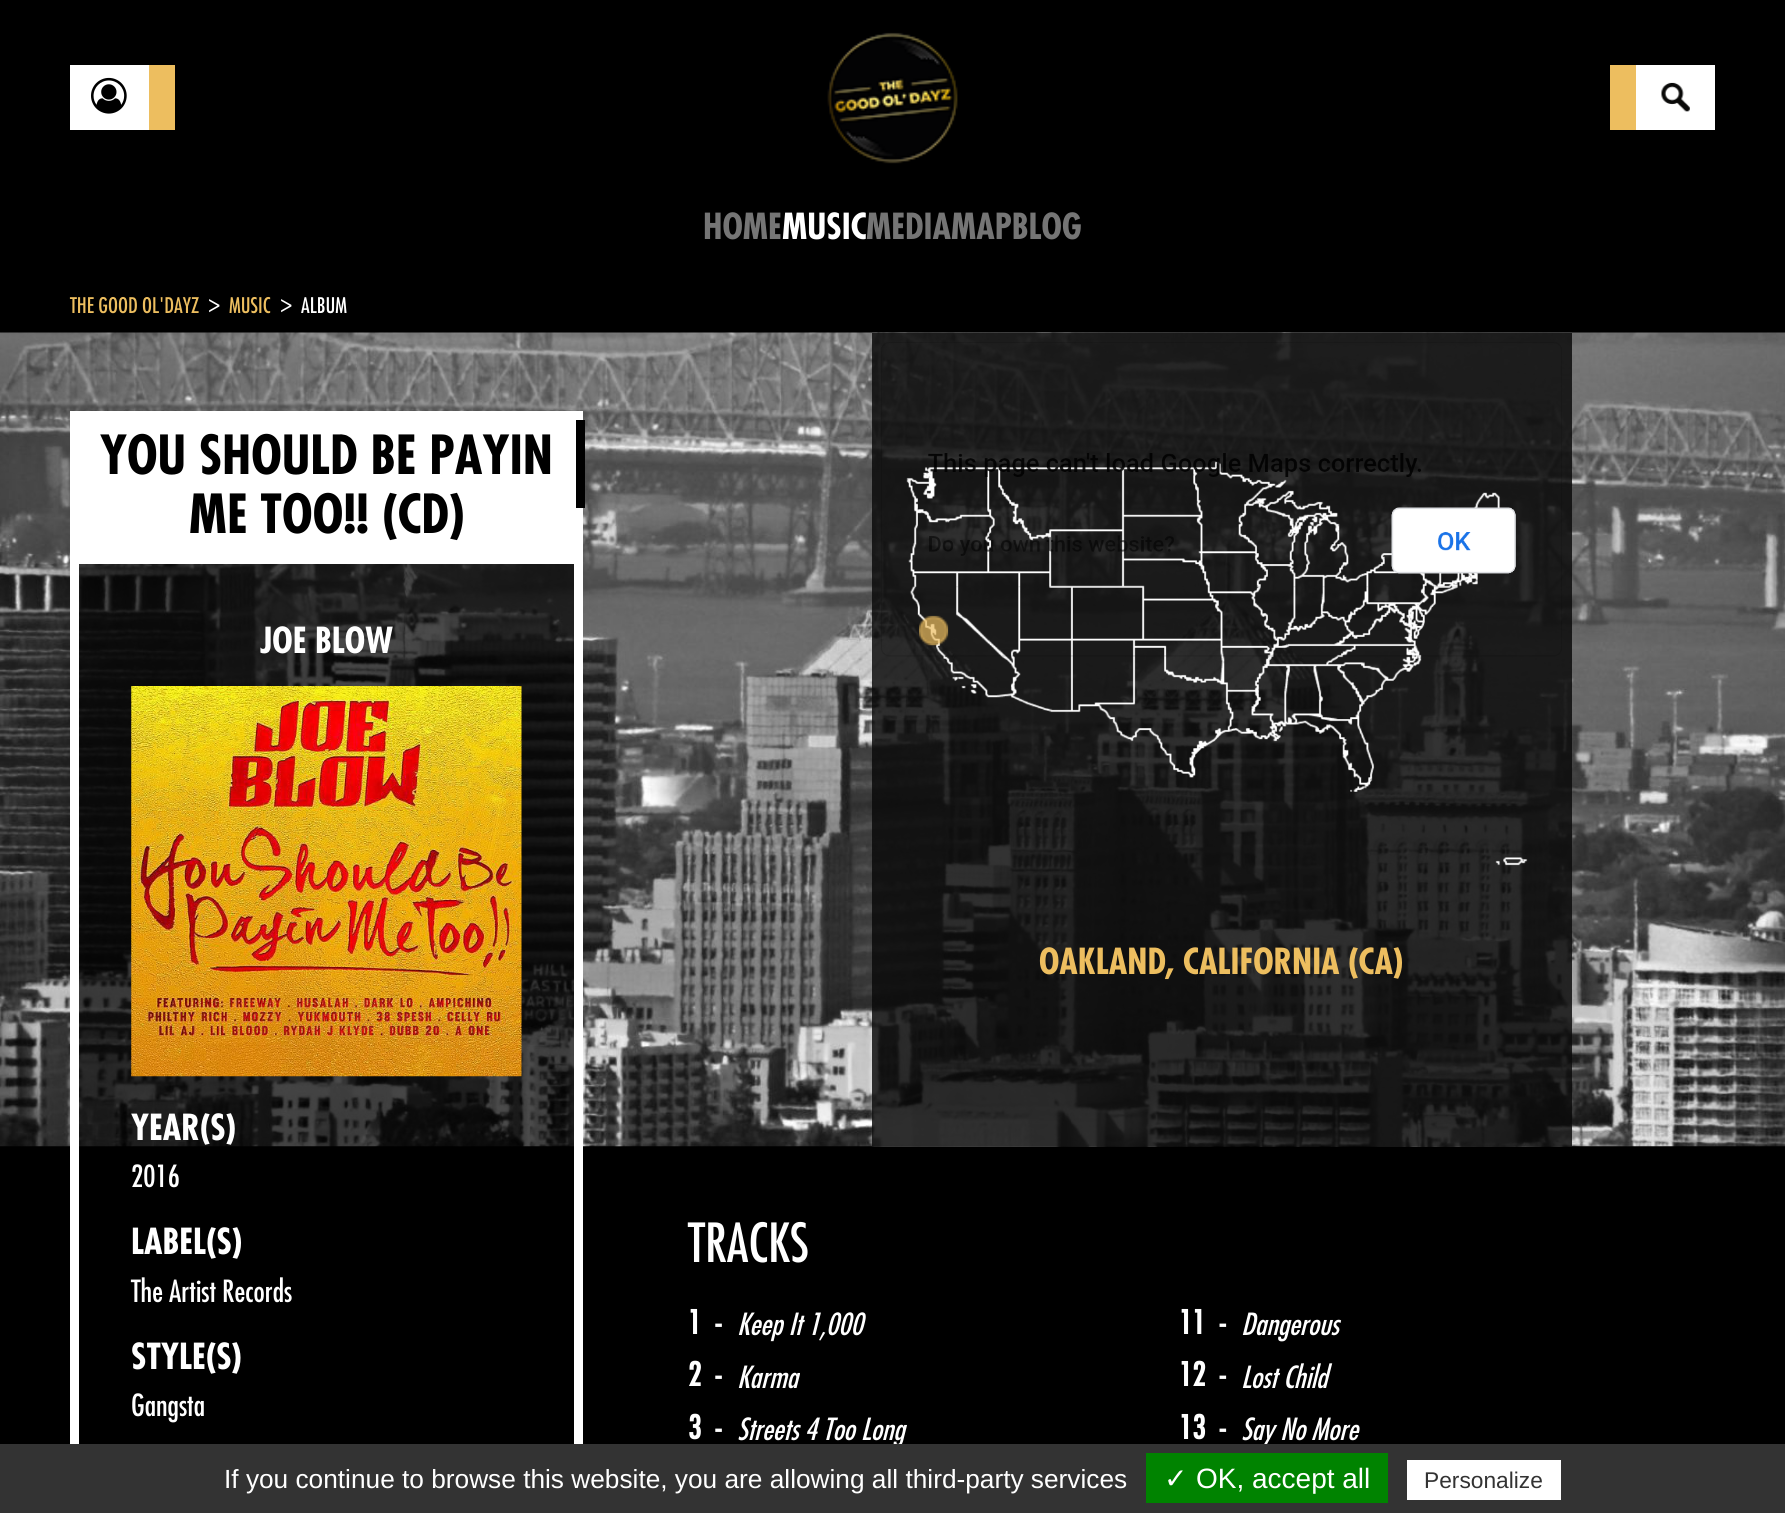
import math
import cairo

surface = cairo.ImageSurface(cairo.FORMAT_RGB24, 1785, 1513)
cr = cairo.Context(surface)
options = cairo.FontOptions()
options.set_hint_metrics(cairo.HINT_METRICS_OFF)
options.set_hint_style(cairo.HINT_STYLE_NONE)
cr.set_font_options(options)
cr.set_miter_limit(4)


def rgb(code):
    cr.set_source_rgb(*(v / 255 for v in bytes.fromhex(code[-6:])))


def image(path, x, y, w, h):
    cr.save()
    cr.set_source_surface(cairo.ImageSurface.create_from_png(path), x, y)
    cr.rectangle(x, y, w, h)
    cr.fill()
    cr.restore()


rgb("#000000")
cr.paint()
rgb("#ffffff")
cr.rectangle(70, 65, 79, 65)
cr.fill()
image("img/1.png", 91, 77, 36, 37)
rgb("#edbe5f")
cr.rectangle(149, 65, 26, 65)
cr.fill()
image("img/2.png", 827, 32, 131, 132)
cr.rectangle(1610, 65, 26, 65)
cr.fill()
rgb("#ffffff")
cr.rectangle(1636, 65, 79, 65)
cr.fill()
image("img/3.png", 1661, 82, 29, 30)
image("img/5.png", 0, 332, 1785, 815)
cr.set_source_rgba(0, 0, 0, 0.7)
cr.rectangle(79, 564, 495, 583)
cr.fill()
cr.rectangle(74.5, 415.5, 504, 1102)
rgb("#ffffff")
cr.set_line_width(9)
cr.stroke()
cr.rectangle(79, 420, 495, 144)
cr.fill()
image("img/4.png", 131, 686, 391, 391)
rgb("#000000")
cr.rectangle(576, 420, 9, 88)
cr.fill()
cr.set_source_rgba(1, 1, 1, 0.15)
cr.rectangle(872, 333, 700, 813)
cr.fill()
cr.set_source_rgba(0, 0, 0, 0.8)
cr.rectangle(872, 333, 700, 813)
cr.fill()
image("img/6.png", 881, 342, 681, 524)
cr.select_font_face("Futura", cairo.FONT_SLANT_NORMAL, cairo.FONT_WEIGHT_BOLD)
cr.set_font_size(35)
rgb("#757575")
cr.move_to(703, 239)
cr.show_text("HOME")
rgb("#ffffff")
cr.move_to(782, 239)
cr.show_text("MUSIC")
rgb("#757575")
cr.move_to(866, 239)
cr.show_text("MEDIAMAPBLOG")
cr.select_font_face("Futura Medium")
cr.set_font_size(21)
rgb("#edbe5f")
cr.move_to(70, 313)
cr.show_text("THE GOOD OL'DAYZ")
cr.set_font_size(25)
rgb("#ffffff")
cr.move_to(208, 312)
cr.show_text(">")
cr.set_font_size(21)
rgb("#edbe5f")
cr.move_to(229, 313)
cr.show_text("MUSIC")
cr.set_font_size(25)
rgb("#ffffff")
cr.move_to(280, 312)
cr.show_text(">")
cr.set_font_size(21)
cr.move_to(301, 313)
cr.show_text("ALBUM")
cr.select_font_face("Futura", cairo.FONT_SLANT_NORMAL, cairo.FONT_WEIGHT_BOLD)
cr.set_font_size(52.5)
rgb("#000000")
cr.move_to(100, 474)
cr.show_text("YOU SHOULD BE PAYIN")
cr.move_to(189, 533)
cr.show_text("ME TOO!! (CD)")
cr.set_font_size(35)
rgb("#ffffff")
cr.move_to(260, 653)
cr.show_text("JOE BLOW")
cr.move_to(131, 1140)
cr.show_text("YEAR(S)")
cr.select_font_face("Futura Medium")
cr.set_font_size(29.75)
cr.move_to(131, 1187)
cr.show_text("2016")
cr.select_font_face("Futura", cairo.FONT_SLANT_NORMAL, cairo.FONT_WEIGHT_BOLD)
cr.set_font_size(35)
cr.move_to(131, 1254)
cr.show_text("LABEL(S)")
cr.select_font_face("Futura Medium")
cr.set_font_size(29.75)
cr.move_to(131, 1302)
cr.show_text("The Artist Records")
cr.select_font_face("Futura", cairo.FONT_SLANT_NORMAL, cairo.FONT_WEIGHT_BOLD)
cr.set_font_size(35)
cr.move_to(131, 1369)
cr.show_text("STYLE(S)")
cr.select_font_face("Futura Medium")
cr.set_font_size(29.75)
cr.move_to(131, 1416)
cr.show_text("Gangsta")
cr.set_font_size(52.5)
cr.move_to(688, 1262)
cr.show_text("TRACKS")
cr.select_font_face("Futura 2", cairo.FONT_SLANT_NORMAL, cairo.FONT_WEIGHT_BOLD)
cr.set_font_size(32)
cr.move_to(688, 1334)
cr.show_text("1  -")
cr.select_font_face("Futura Medium", cairo.FONT_SLANT_ITALIC)
cr.set_font_size(29.75)
cr.move_to(737, 1335)
cr.show_text("Keep It 1,000")
cr.select_font_face("Futura 2", cairo.FONT_SLANT_NORMAL, cairo.FONT_WEIGHT_BOLD)
cr.set_font_size(32)
cr.move_to(688, 1386)
cr.show_text("2  -")
cr.select_font_face("Futura Medium", cairo.FONT_SLANT_ITALIC)
cr.set_font_size(29.75)
cr.move_to(737, 1388)
cr.show_text("Karma")
cr.select_font_face("Futura 2", cairo.FONT_SLANT_NORMAL, cairo.FONT_WEIGHT_BOLD)
cr.set_font_size(32)
cr.move_to(688, 1439)
cr.show_text("3  -")
cr.select_font_face("Futura Medium", cairo.FONT_SLANT_ITALIC)
cr.set_font_size(29.75)
cr.move_to(737, 1440)
cr.show_text("Streets 4 Too Long")
cr.select_font_face("Futura 2", cairo.FONT_SLANT_NORMAL, cairo.FONT_WEIGHT_BOLD)
cr.set_font_size(32)
cr.move_to(1179, 1334)
cr.show_text("11  -")
cr.select_font_face("Futura Medium", cairo.FONT_SLANT_ITALIC)
cr.set_font_size(29.75)
cr.move_to(1241, 1335)
cr.show_text("Dangerous")
cr.select_font_face("Futura 2", cairo.FONT_SLANT_NORMAL, cairo.FONT_WEIGHT_BOLD)
cr.set_font_size(32)
cr.move_to(1179, 1386)
cr.show_text("12  -")
cr.select_font_face("Futura Medium", cairo.FONT_SLANT_ITALIC)
cr.set_font_size(29.75)
cr.move_to(1241, 1388)
cr.show_text("Lost Child")
cr.select_font_face("Futura 2", cairo.FONT_SLANT_NORMAL, cairo.FONT_WEIGHT_BOLD)
cr.set_font_size(32)
cr.move_to(1179, 1439)
cr.show_text("13  -")
cr.select_font_face("Futura Medium", cairo.FONT_SLANT_ITALIC)
cr.set_font_size(29.75)
cr.move_to(1241, 1440)
cr.show_text("Say No More")
cr.select_font_face("Futura", cairo.FONT_SLANT_NORMAL, cairo.FONT_WEIGHT_BOLD)
cr.set_font_size(35)
rgb("#edbe5f")
cr.move_to(1039, 974)
cr.show_text("OAKLAND, CALIFORNIA (CA)")
rgb("#333333")
cr.rectangle(0, 1444, 1785, 69)
cr.fill()
cr.select_font_face("Liberation Sans")
cr.set_font_size(26.25)
rgb("#ffffff")
cr.move_to(224, 1488)
cr.show_text("If you continue to browse this website, you are allowing all third-party services")
rgb("#008300")
cr.rectangle(1146, 1453, 242, 50)
cr.fill()
cr.select_font_face("DejaVu Sans")
cr.set_font_size(28)
rgb("#ffffff")
cr.move_to(1164, 1488)
cr.show_text("✓")
cr.select_font_face("Liberation Sans")
cr.move_to(1196, 1488)
cr.show_text("OK, accept all")
cr.rectangle(1407, 1460, 154, 40)
cr.fill()
cr.set_font_size(22.75)
rgb("#333333")
cr.move_to(1424, 1488)
cr.show_text("Personalize")
surface.write_to_png("page.png")
